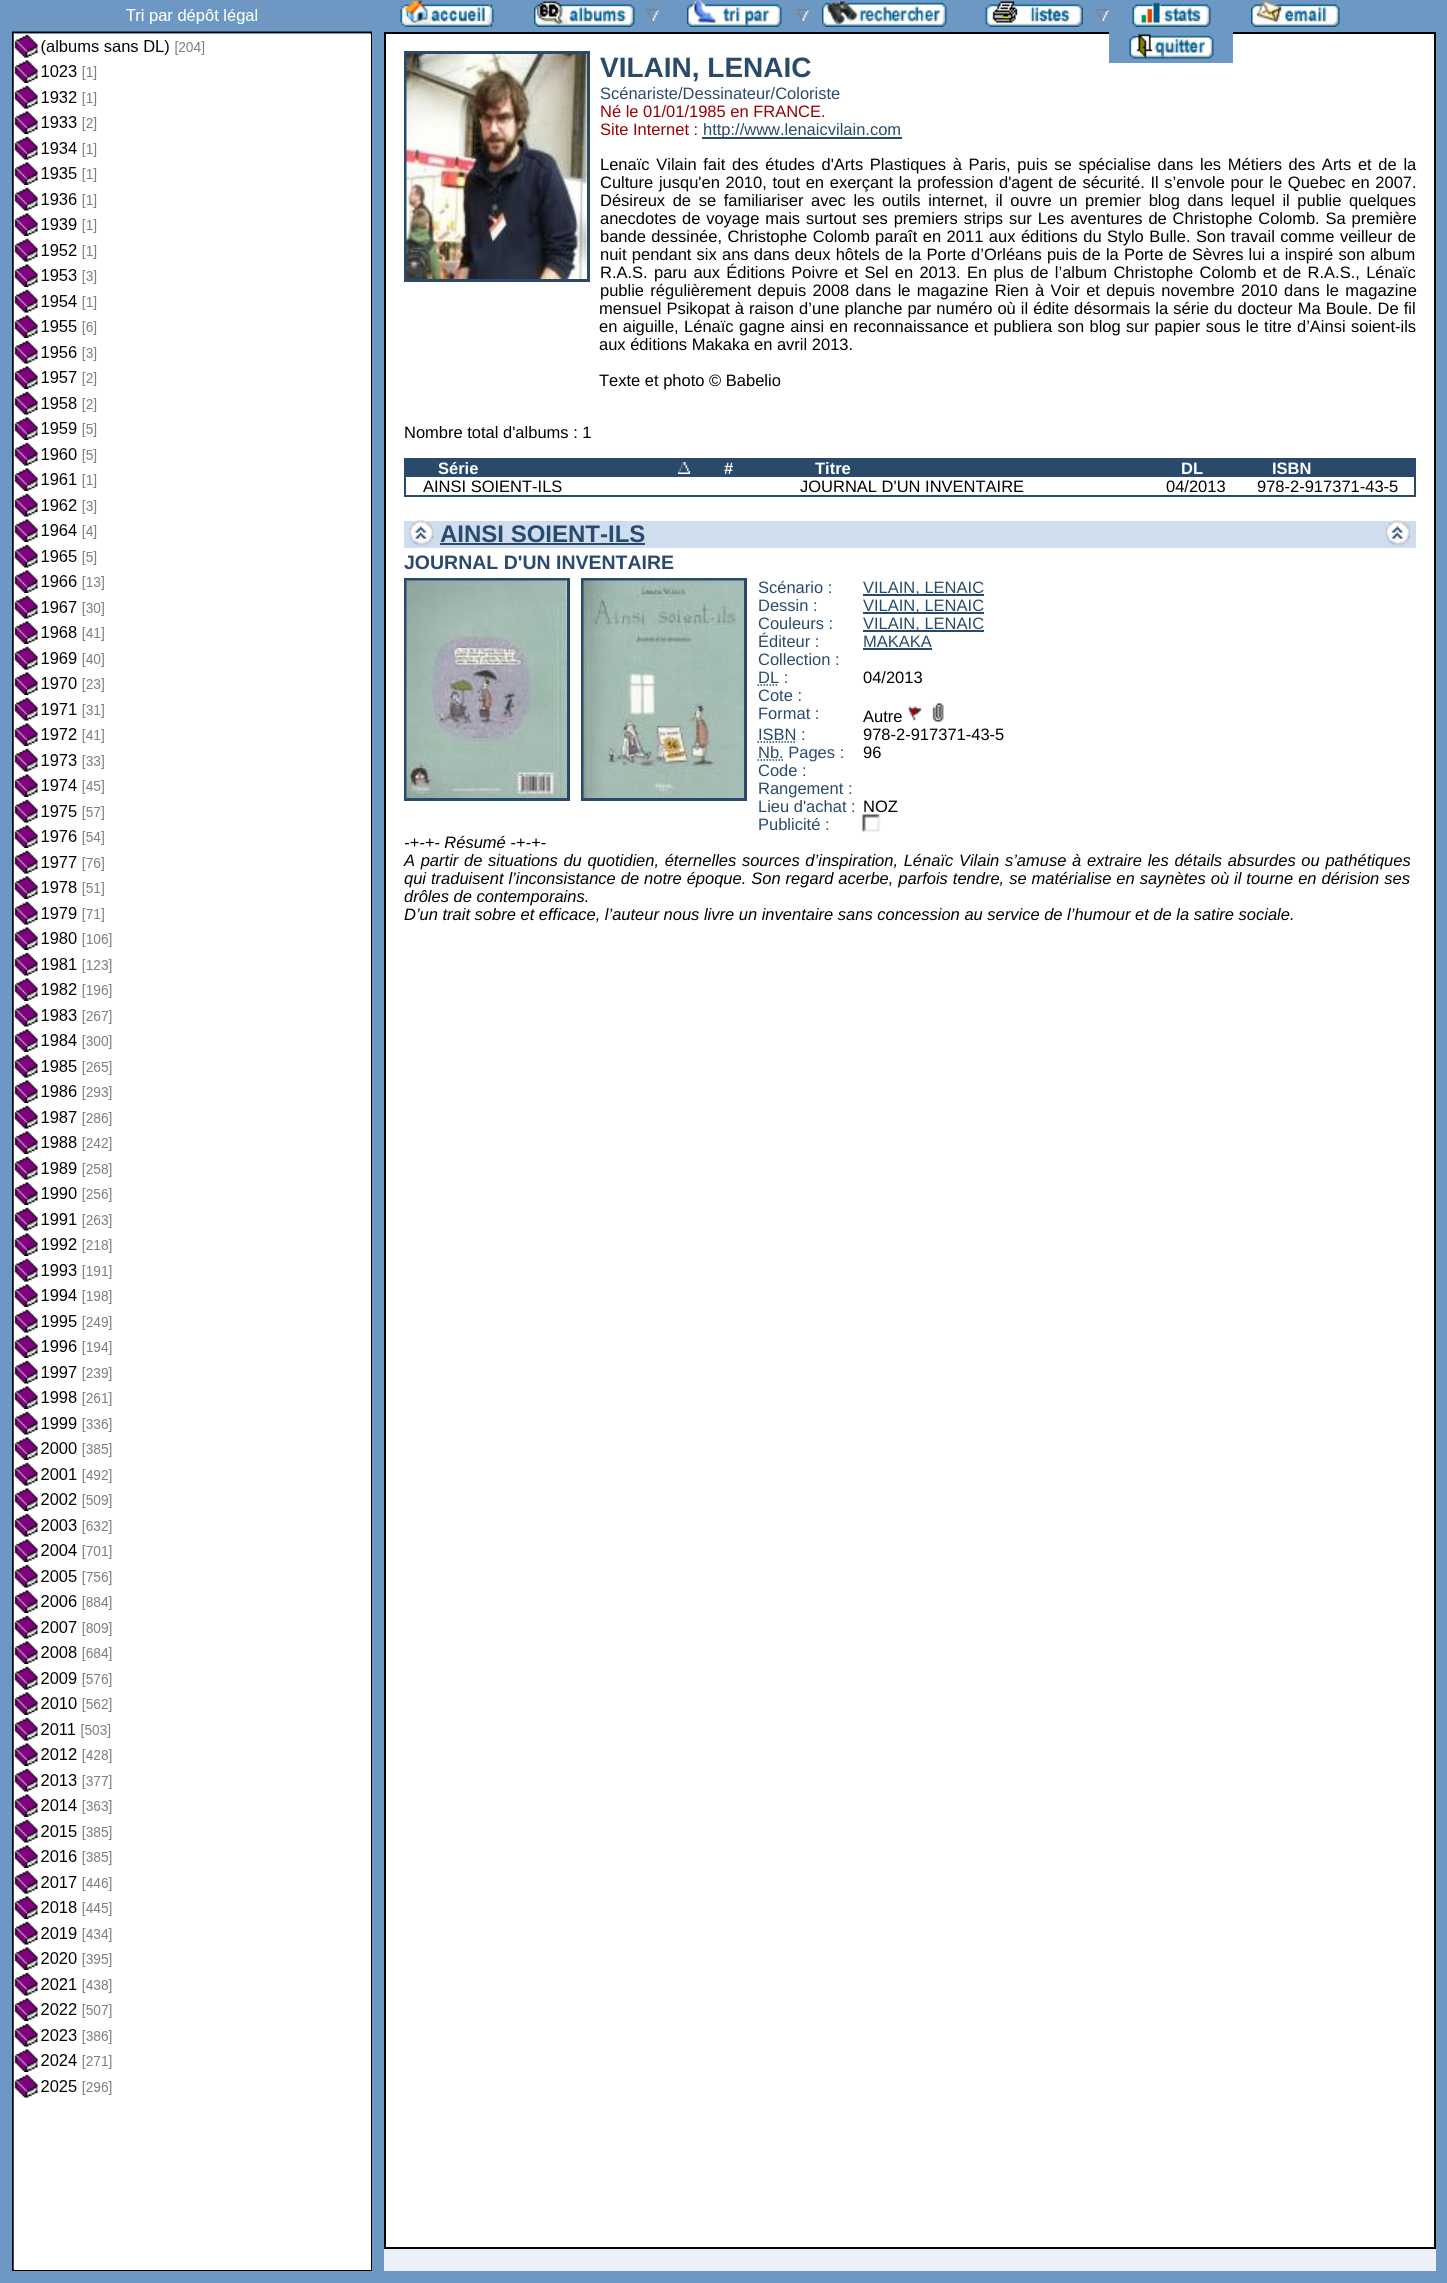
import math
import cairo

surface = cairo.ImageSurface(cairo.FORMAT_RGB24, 1447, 2283)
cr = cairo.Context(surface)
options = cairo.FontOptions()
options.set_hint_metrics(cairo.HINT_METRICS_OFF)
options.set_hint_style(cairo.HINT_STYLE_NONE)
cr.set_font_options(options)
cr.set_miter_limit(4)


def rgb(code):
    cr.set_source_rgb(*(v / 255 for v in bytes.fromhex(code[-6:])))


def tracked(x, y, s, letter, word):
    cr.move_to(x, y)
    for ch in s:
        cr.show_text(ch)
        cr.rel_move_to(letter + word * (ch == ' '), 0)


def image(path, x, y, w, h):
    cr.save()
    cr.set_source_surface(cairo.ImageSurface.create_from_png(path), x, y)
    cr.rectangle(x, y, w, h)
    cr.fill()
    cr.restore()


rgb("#6d98c3")
cr.paint()
image("img/1.png", 12, 9, 360, 2262)
image("img/2.png", 400, 0, 94, 27)
image("img/3.png", 646, 9, 13, 12)
image("img/4.png", 534, 1, 101, 26)
image("img/5.png", 796, 9, 13, 12)
image("img/6.png", 687, 0, 95, 27)
image("img/7.png", 822, 1, 125, 26)
image("img/5.png", 1096, 9, 13, 12)
image("img/8.png", 985, 1, 98, 26)
image("img/9.png", 1132, 2, 79, 25)
image("img/10.png", 1251, 1, 89, 26)
rgb("#ffffff")
cr.rectangle(385, 33, 1050, 2215)
cr.fill_preserve()
rgb("#000000")
cr.stroke()
rgb("#6d98c3")
cr.rectangle(1109, 32, 124, 31)
cr.fill()
image("img/11.png", 1129, 34, 85, 25)
cr.rectangle(405.5, 52.5, 183, 228)
rgb("#294a6b")
cr.set_line_width(3)
cr.stroke()
image("img/12.png", 406, 54, 181, 225)
cr.rectangle(702, 137, 200, 2)
cr.fill()
cr.rectangle(405, 459, 1010, 37)
cr.set_line_width(2)
cr.stroke()
cr.rectangle(406, 460, 1008, 17)
cr.fill()
image("img/13.png", 678, 462, 12, 12)
rgb("#cedeef")
cr.rectangle(404, 521, 1012, 27)
cr.fill()
image("img/14.png", 409, 520, 25, 26)
image("img/15.png", 1386, 520, 24, 26)
rgb("#294a6b")
cr.rectangle(440, 543, 205, 2)
cr.fill()
cr.rectangle(405.5, 579.5, 163, 220)
cr.set_line_width(3)
cr.stroke()
image("img/16.png", 406, 580, 161, 218)
cr.rectangle(582.5, 579.5, 163, 220)
cr.stroke()
image("img/17.png", 583, 580, 161, 218)
for x, y, w, h, color in [
    (863, 594, 121, 2, "#294a6b"),
    (863, 612, 121, 2, "#294a6b"),
    (863, 630, 121, 2, "#294a6b"),
    (863, 648, 69, 2, "#294a6b"),
]:
    rgb(color)
    cr.rectangle(x, y, w, h)
    cr.fill()
cr.new_path()
cr.move_to(757.5, 685)
cr.line_to(778.5, 685)
cr.set_line_width(1.5)
cr.set_dash([1.5, 1.5])
cr.stroke()
image("img/18.png", 908, 706, 14, 15)
image("img/19.png", 932, 703, 12, 19)
cr.new_path()
cr.move_to(757.5, 742)
cr.line_to(796, 742)
cr.stroke()
cr.new_path()
cr.move_to(757.5, 760)
cr.line_to(783, 760)
cr.stroke()
image("img/20.png", 862, 814, 19, 19)
rgb("#ebf1f7")
cr.rectangle(384, 2249, 1052, 22)
cr.fill()
cr.select_font_face("Liberation Sans", cairo.FONT_SLANT_NORMAL, cairo.FONT_WEIGHT_BOLD)
cr.set_font_size(28)
rgb("#294a6b")
cr.move_to(600, 77)
cr.show_text("VILAIN, LENAIC")
cr.select_font_face("Liberation Sans")
cr.set_font_size(16.5)
cr.move_to(600, 99)
cr.show_text("Scénariste/Dessinateur/Coloriste")
rgb("#990000")
cr.move_to(600, 117)
cr.show_text("Né le 01/01/1985 en FRANCE.")
cr.move_to(600, 135)
cr.show_text("Site Internet :")
rgb("#294a6b")
cr.move_to(703, 135)
cr.show_text("http://www.lenaicvilain.com")
rgb("#000000")
tracked(600, 170, "Lenaïc Vilain fait des études d'Arts Plastiques à Paris, puis se spécialise dans les Métiers des Arts et de la", 0, 2.1)
tracked(600, 188, "Culture jusqu'en 2010, tout en exerçant la profession d'agent de sécurité. Il s’envole pour le Quebec en 2007.", 0, 1.1)
tracked(600, 206, "Désireux de se familiariser avec les outils internet, il ouvre un premier blog dans lequel il publie quelques", 0, 3)
tracked(600, 224, "anecdotes de voyage mais surtout ses premiers strips sur Les aventures de Christophe Colomb. Sa première", 0, 1.25)
tracked(600, 242, "bande dessinée, Christophe Colomb paraît en 2011 aux éditions du Stylo Bulle. Son travail comme veilleur de", 0, 0.9)
tracked(600, 260, "nuit pendant six ans dans deux hôtels de la Porte d’Orléans puis de la Porte de Sèvres lui a inspiré son album", 0, 0.6)
tracked(600, 278, "R.A.S. paru aux Éditions Poivre et Sel en 2013. En plus de l’album Christophe Colomb et de R.A.S., Lénaïc", 0, 1.75)
tracked(600, 296, "publie régulièrement depuis 2008 dans le magazine Rien à Voir et depuis novembre 2010 dans le magazine", 0, 1.75)
tracked(599, 314, "mensuel Psikopat à raison d’une planche par numéro où il édite désormais la série du docteur Ma Boule. De fil", 0, 0.5)
tracked(599, 332, "en aiguille, Lénaïc gagne ainsi en reconnaissance et publiera son blog sur papier sous le titre d’Ainsi soient-ils", 0, 0.8)
for x, y, s in [
    (599, 350, "aux éditions Makaka en avril 2013."),
    (599, 386, "Texte et photo © Babelio"),
    (404, 438, "Nombre total d'albums : 1"),
]:
    cr.move_to(x, y)
    cr.show_text(s)
cr.select_font_face("Liberation Sans", cairo.FONT_SLANT_NORMAL, cairo.FONT_WEIGHT_BOLD)
rgb("#ffffff")
for x, y, s in [
    (438, 474, "Série"),
    (724, 474, "#"),
    (815, 474, "Titre"),
    (1181, 474, "DL"),
    (1272, 474, "ISBN"),
]:
    cr.move_to(x, y)
    cr.show_text(s)
cr.select_font_face("Liberation Sans")
rgb("#000000")
for x, y, s in [
    (423, 492, "AINSI SOIENT-ILS"),
    (800, 492, "JOURNAL D'UN INVENTAIRE"),
    (1166, 492, "04/2013"),
    (1257, 492, "978-2-917371-43-5"),
]:
    cr.move_to(x, y)
    cr.show_text(s)
cr.select_font_face("Liberation Sans", cairo.FONT_SLANT_NORMAL, cairo.FONT_WEIGHT_BOLD)
cr.set_font_size(24)
rgb("#294a6b")
cr.move_to(440, 542)
cr.show_text("AINSI SOIENT-ILS")
cr.set_font_size(19.5)
cr.move_to(404, 569)
cr.show_text("JOURNAL D'UN INVENTAIRE")
cr.select_font_face("Liberation Sans")
cr.set_font_size(16.5)
for x, y, s in [
    (758, 593, "Scénario :"),
    (863, 593, "VILAIN, LENAIC"),
    (758, 611, "Dessin :"),
    (863, 611, "VILAIN, LENAIC"),
    (758, 629, "Couleurs :"),
    (863, 629, "VILAIN, LENAIC"),
    (758, 647, "Éditeur :"),
    (863, 647, "MAKAKA"),
    (758, 665, "Collection :"),
    (758, 683, "DL :"),
]:
    cr.move_to(x, y)
    cr.show_text(s)
rgb("#000000")
cr.move_to(863, 683)
cr.show_text("04/2013")
rgb("#294a6b")
cr.move_to(758, 701)
cr.show_text("Cote :")
cr.move_to(758, 719)
cr.show_text("Format :")
rgb("#000000")
cr.move_to(863, 722)
cr.show_text("Autre")
rgb("#294a6b")
cr.move_to(758, 740)
cr.show_text("ISBN :")
rgb("#000000")
cr.move_to(863, 740)
cr.show_text("978-2-917371-43-5")
rgb("#294a6b")
cr.move_to(758, 758)
cr.show_text("Nb. Pages :")
rgb("#000000")
cr.move_to(863, 758)
cr.show_text("96")
rgb("#294a6b")
for x, y, s in [
    (758, 776, "Code :"),
    (758, 794, "Rangement :"),
    (758, 812, "Lieu d'achat :"),
]:
    cr.move_to(x, y)
    cr.show_text(s)
rgb("#000000")
cr.move_to(863, 812)
cr.show_text("NOZ")
rgb("#294a6b")
cr.move_to(758, 830)
cr.show_text("Publicité :")
cr.select_font_face("Liberation Sans", cairo.FONT_SLANT_ITALIC)
rgb("#000000")
cr.move_to(404, 848)
cr.show_text("-+-+- Résumé -+-+-")
tracked(404, 866, "A partir de situations du quotidien, éternelles sources d’inspiration, Lénaïc Vilain s’amuse à extraire les détails absurdes ou pathétiques", 0, 1.1)
tracked(404, 884, "qui traduisent l’inconsistance de notre époque. Son regard acerbe, parfois tendre, se matérialise en saynètes où il tourne en dérision ses", 0, 0.4)
cr.move_to(404, 902)
cr.show_text("drôles de contemporains.")
cr.move_to(404, 920)
cr.show_text("D’un trait sobre et efficace, l’auteur nous livre un inventaire sans concession au service de l’humour et de la satire sociale.")
surface.write_to_png("page.png")
